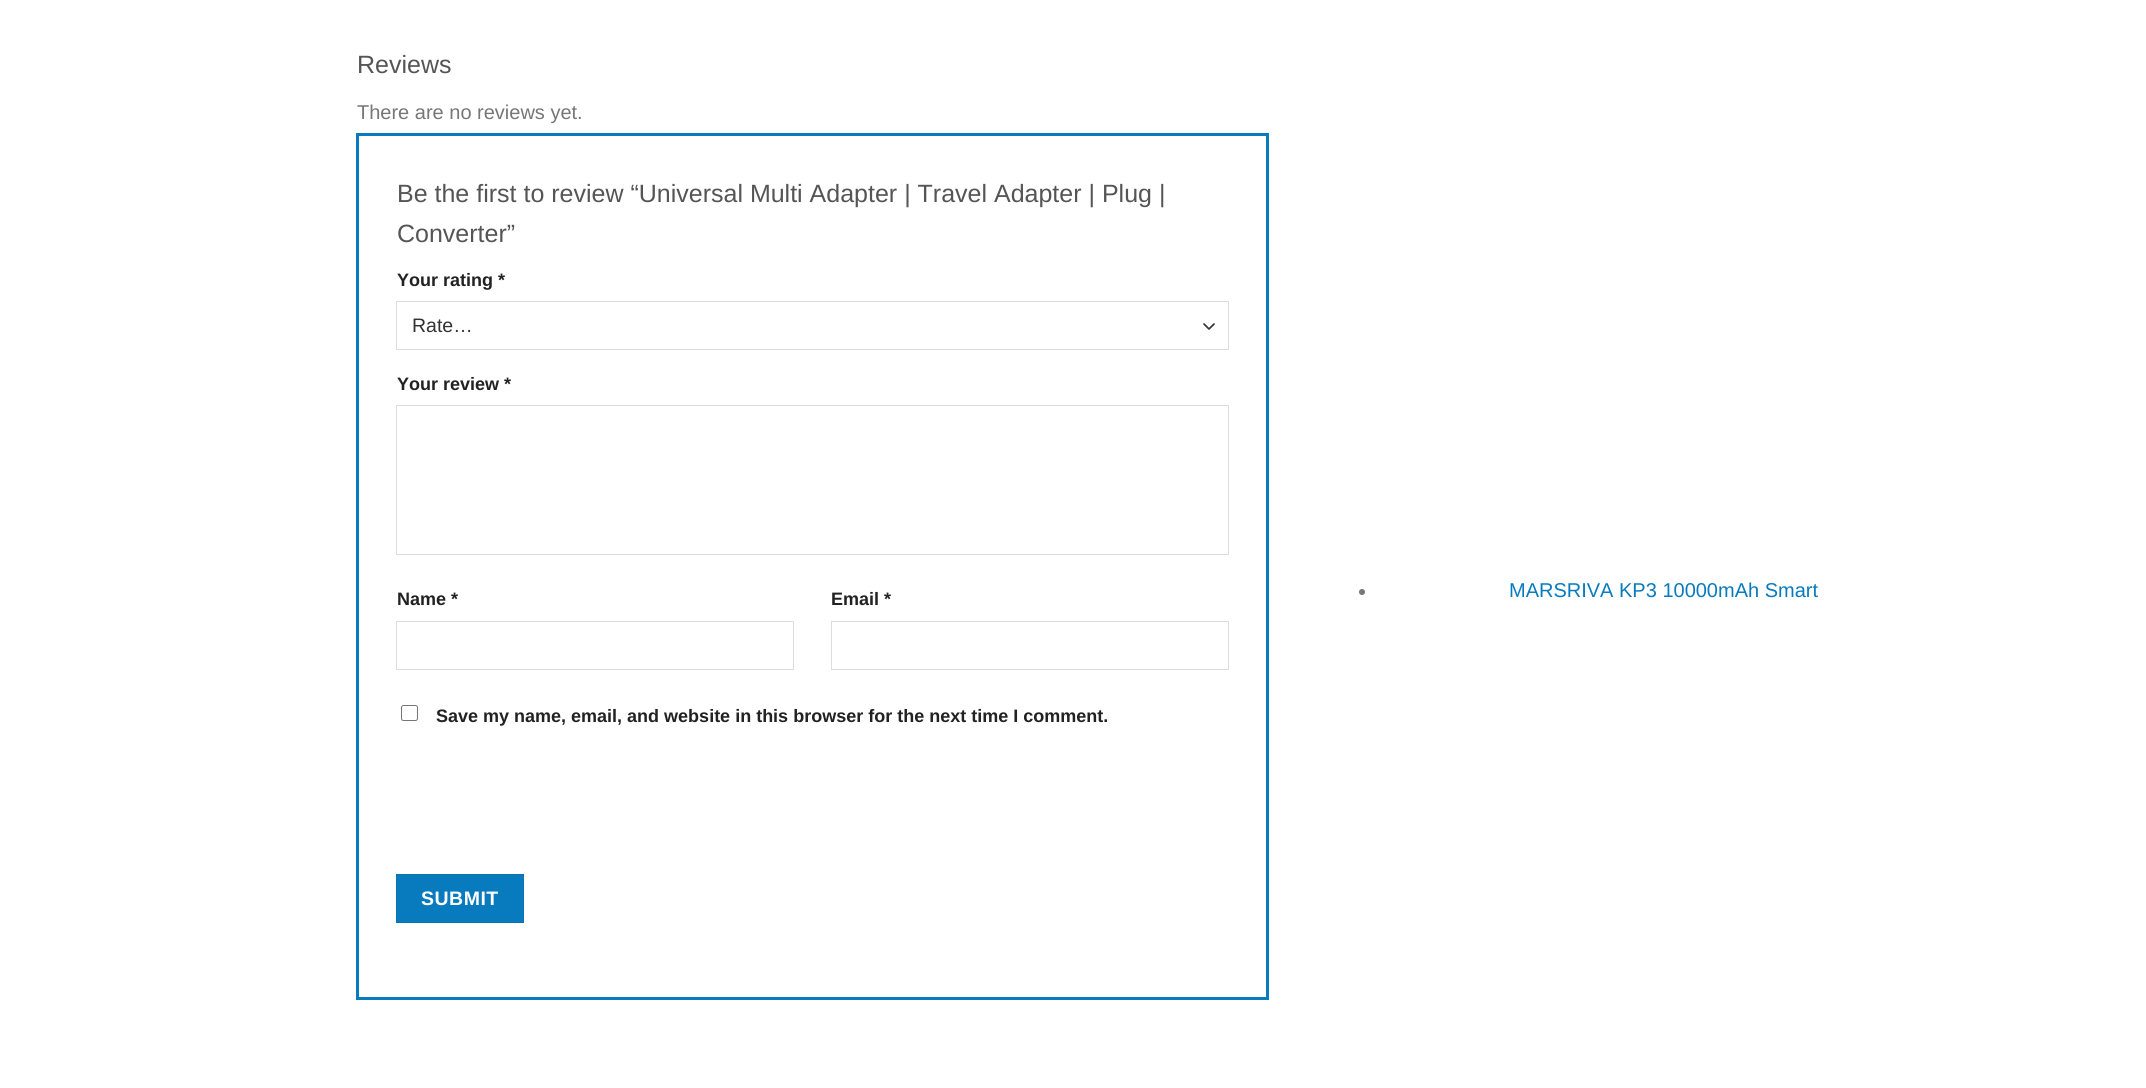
import math
import cairo

surface = cairo.ImageSurface(cairo.FORMAT_RGB24, 2146, 1088)
cr = cairo.Context(surface)
options = cairo.FontOptions()
options.set_hint_metrics(cairo.HINT_METRICS_OFF)
options.set_hint_style(cairo.HINT_STYLE_NONE)
cr.set_font_options(options)
cr.set_miter_limit(4)


def rgb(code):
    cr.set_source_rgb(*(v / 255 for v in bytes.fromhex(code[-6:])))


def tracked(x, y, s, letter, word):
    cr.move_to(x, y)
    for ch in s:
        cr.show_text(ch)
        cr.rel_move_to(letter + word * (ch == ' '), 0)


def rrect(x, y, w, h, r):
    cr.new_sub_path()
    for i, (u, v) in enumerate([(x + w - r, y + h - r), (x + r, y + h - r), (x + r, y + r), (x + w - r, y + r)]):
        cr.arc(u, v, r, i * math.pi / 2, (i + 1) * math.pi / 2)
    cr.close_path()


rgb("#ffffff")
cr.paint()
cr.rectangle(357.5, 134.5, 910, 864)
rgb("#087abe")
cr.set_line_width(3)
cr.stroke()
cr.new_path()
cr.move_to(1204, 324)
cr.line_to(1209, 329)
cr.line_to(1214, 324)
rgb("#333333")
cr.set_line_width(1.7)
cr.set_line_cap(cairo.LINE_CAP_ROUND)
cr.set_line_join(cairo.LINE_JOIN_ROUND)
cr.stroke()
cr.rectangle(396.5, 301.5, 832, 48)
rgb("#dddddd")
cr.set_line_width(1)
cr.set_line_cap(cairo.LINE_CAP_BUTT)
cr.set_line_join(cairo.LINE_JOIN_MITER)
cr.stroke()
cr.rectangle(396.5, 405.5, 832, 149)
cr.stroke()
cr.rectangle(396.5, 621.5, 397, 48)
cr.stroke()
cr.rectangle(831.5, 621.5, 397, 48)
cr.stroke()
rrect(401.5, 705.5, 16, 15, 2)
rgb("#767676")
cr.stroke()
rgb("#087abe")
cr.rectangle(396.5, 874.5, 127, 48)
cr.fill_preserve()
rgb("#0874b5")
cr.stroke()
rgb("#777777")
cr.arc(1362, 592, 3, 0, 2 * math.pi)
cr.fill()
cr.select_font_face("Liberation Sans")
cr.set_font_size(25)
rgb("#555555")
cr.move_to(357, 73)
cr.show_text("Reviews")
cr.set_font_size(20)
rgb("#777777")
cr.move_to(357, 119)
cr.show_text("There are no reviews yet.")
cr.set_font_size(25)
rgb("#555555")
cr.move_to(397, 202)
cr.show_text("Be the first to review “Universal Multi Adapter | Travel Adapter | Plug |")
cr.move_to(397, 242)
cr.show_text("Converter”")
cr.select_font_face("Liberation Sans", cairo.FONT_SLANT_NORMAL, cairo.FONT_WEIGHT_BOLD)
cr.set_font_size(18)
rgb("#222222")
cr.move_to(397, 286)
cr.show_text("Your rating *")
cr.select_font_face("Liberation Sans")
cr.set_font_size(19.5)
rgb("#333333")
cr.move_to(412, 332)
cr.show_text("Rate…")
cr.select_font_face("Liberation Sans", cairo.FONT_SLANT_NORMAL, cairo.FONT_WEIGHT_BOLD)
cr.set_font_size(18)
rgb("#222222")
for x, y, s in [
    (397, 390, "Your review *"),
    (397, 605, "Name *"),
    (831, 605, "Email *"),
    (436, 722, "Save my name, email, and website in this browser for the next time I comment."),
]:
    cr.move_to(x, y)
    cr.show_text(s)
cr.set_font_size(19.5)
rgb("#ffffff")
tracked(421, 905, "SUBMIT", 0.5, 0)
cr.select_font_face("Liberation Sans")
cr.set_font_size(20)
rgb("#087abe")
cr.move_to(1509, 597)
cr.show_text("MARSRIVA KP3 10000mAh Smart")
surface.write_to_png("page.png")
